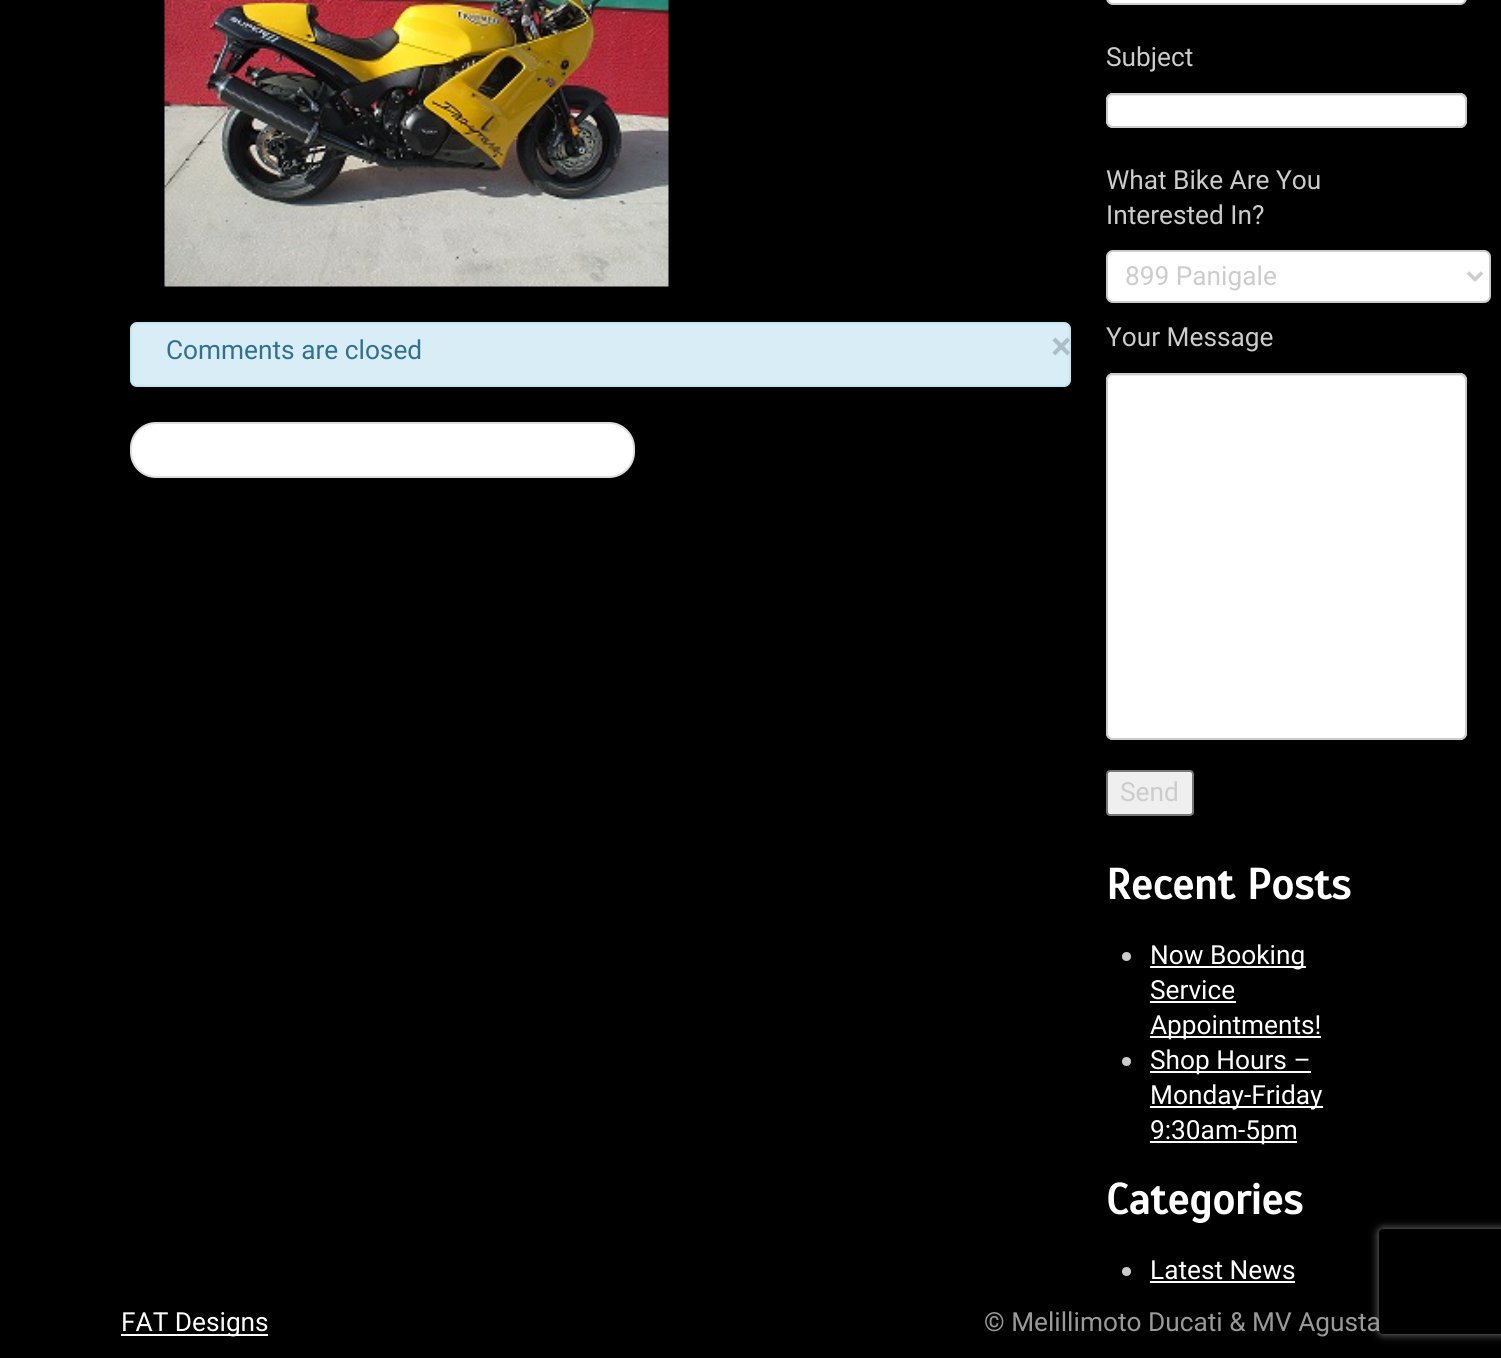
import math
import cairo

surface = cairo.ImageSurface(cairo.FORMAT_RGB24, 1501, 1358)
cr = cairo.Context(surface)
options = cairo.FontOptions()
options.set_hint_metrics(cairo.HINT_METRICS_OFF)
options.set_hint_style(cairo.HINT_STYLE_NONE)
cr.set_font_options(options)
cr.set_miter_limit(4)


def rgb(code):
    cr.set_source_rgb(*(v / 255 for v in bytes.fromhex(code[-6:])))


def rrect(x, y, w, h, r):
    cr.new_sub_path()
    for i, (u, v) in enumerate([(x + w - r, y + h - r), (x + r, y + h - r), (x + r, y + r), (x + w - r, y + r)]):
        cr.arc(u, v, r, i * math.pi / 2, (i + 1) * math.pi / 2)
    cr.close_path()


def soft_shadow(x, y, w, h, r, blur, alpha):
    cr.push_group_with_content(cairo.CONTENT_ALPHA)
    cr.set_operator(cairo.OPERATOR_SOURCE)
    for i in range(15, -16, -2):
        e = blur * i / 6
        if min(w, h) + 2 * e > 0:
            cr.set_source_rgba(0, 0, 0, alpha * math.erfc((i - 1) / 8.5) / 2)
            rrect(x - e, y - e, w + 2 * e, h + 2 * e, max(0, min(r + e + blur * .6, min(w, h) / 2 + e)))
            cr.fill()
    cr.mask(cr.pop_group())


def image(path, x, y, w, h):
    cr.save()
    cr.set_source_surface(cairo.ImageSurface.create_from_png(path), x, y)
    cr.rectangle(x, y, w, h)
    cr.fill()
    cr.restore()


rgb("#000000")
cr.paint()
image("img/1.png", 164, 0, 505, 287)
rgb("#d9edf7")
rrect(131, 323, 939, 63, 6)
cr.fill_preserve()
rgb("#bce8f1")
cr.stroke()
rgb("#ffffff")
rrect(131, 423, 503, 54, 25)
cr.fill_preserve()
rgb("#dddddd")
cr.stroke()
rgb("#ffffff")
rrect(1107, -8, 359, 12, 6)
cr.fill_preserve()
rgb("#cccccc")
cr.stroke()
rgb("#ffffff")
rrect(1106, 93, 361, 35, 7)
cr.fill()
rgb("#ececec")
cr.new_path()
cr.move_to(1113, 96)
cr.line_to(1460, 96)
cr.curve_to(1462, 96, 1465, 99, 1465, 102)
cr.curve_to(1465, 99, 1464, 95, 1460, 95)
cr.line_to(1113, 95)
cr.curve_to(1109, 95, 1108, 99, 1108, 102)
cr.curve_to(1108, 99, 1110, 96, 1113, 96)
cr.close_path()
cr.fill()
rrect(1107, 94, 359, 33, 6)
rgb("#cccccc")
cr.stroke()
rgb("#ffffff")
rrect(1107, 251, 383, 51, 6)
cr.fill_preserve()
rgb("#cccccc")
cr.stroke()
cr.new_path()
cr.move_to(1468, 272.5)
cr.line_to(1475, 279.5)
cr.line_to(1482, 272.5)
cr.set_line_width(3.5)
cr.stroke()
rgb("#ffffff")
rrect(1106, 373, 361, 367, 7)
cr.fill()
rgb("#ececec")
cr.new_path()
cr.move_to(1113, 376)
cr.line_to(1460, 376)
cr.curve_to(1462, 376, 1465, 379, 1465, 382)
cr.curve_to(1465, 379, 1464, 375, 1460, 375)
cr.line_to(1113, 375)
cr.curve_to(1109, 375, 1108, 379, 1108, 382)
cr.curve_to(1108, 379, 1110, 376, 1113, 376)
cr.close_path()
cr.fill()
rrect(1107, 374, 359, 365, 6)
rgb("#cccccc")
cr.set_line_width(2)
cr.stroke()
rgb("#efefef")
rrect(1107, 771, 86, 44, 3)
cr.fill_preserve()
rgb("#767676")
cr.stroke()
rgb("#cccccc")
cr.arc(1126.5, 956.5, 4.5, 0, 2 * math.pi)
cr.fill()
for x, y, w, h, color in [
    (1150, 966, 156, 2, "#ffffff"),
    (1150, 1001, 86, 2, "#ffffff"),
    (1150, 1036, 171, 2, "#ffffff"),
]:
    rgb(color)
    cr.rectangle(x, y, w, h)
    cr.fill()
rgb("#cccccc")
cr.arc(1126.5, 1061.5, 4.5, 0, 2 * math.pi)
cr.fill()
for x, y, w, h, color in [
    (1150, 1071, 161, 2, "#ffffff"),
    (1150, 1106, 173, 2, "#ffffff"),
    (1150, 1141, 147, 2, "#ffffff"),
]:
    rgb(color)
    cr.rectangle(x, y, w, h)
    cr.fill()
rgb("#cccccc")
cr.arc(1126.5, 1271.5, 4.5, 0, 2 * math.pi)
cr.fill()
rgb("#ffffff")
cr.rectangle(1150, 1281, 145, 2)
cr.fill()
cr.rectangle(121, 1334, 147, 2)
cr.fill()
cr.save()
cr.set_fill_rule(cairo.FILL_RULE_EVEN_ODD)
cr.new_path()
cr.move_to(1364, 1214)
cr.line_to(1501, 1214)
cr.line_to(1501, 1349)
cr.line_to(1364, 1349)
cr.close_path()
cr.move_to(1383, 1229)
cr.line_to(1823, 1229)
cr.curve_to(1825, 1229, 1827, 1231, 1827, 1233)
cr.line_to(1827, 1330)
cr.curve_to(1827, 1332, 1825, 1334, 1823, 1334)
cr.line_to(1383, 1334)
cr.curve_to(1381, 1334, 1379, 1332, 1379, 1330)
cr.line_to(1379, 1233)
cr.curve_to(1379, 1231, 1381, 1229, 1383, 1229)
cr.close_path()
cr.clip()
rgb("#808080")
soft_shadow(1379, 1229, 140, 105, 4, 4.5, 1)
cr.restore()
cr.select_font_face("Roboto")
cr.set_font_size(26.25)
rgb("#31708f")
cr.move_to(166, 359)
cr.show_text("Comments are closed")
cr.select_font_face("Roboto", cairo.FONT_SLANT_NORMAL, cairo.FONT_WEIGHT_BOLD)
cr.set_font_size(37)
rgb("#aebec6")
cr.move_to(1051, 359)
cr.show_text("×")
cr.select_font_face("Roboto")
cr.set_font_size(26.25)
rgb("#cccccc")
for x, y, s in [
    (1106, 66, "Subject"),
    (1106, 189, "What Bike Are You"),
    (1106, 224, "Interested In?"),
    (1125, 285, "899 Panigale"),
    (1106, 346, "Your Message"),
    (1120, 801, "Send"),
]:
    cr.move_to(x, y)
    cr.show_text(s)
cr.select_font_face("Scada", cairo.FONT_SLANT_NORMAL, cairo.FONT_WEIGHT_BOLD)
cr.set_font_size(43)
rgb("#ffffff")
cr.move_to(1106, 899)
cr.show_text("Recent Posts")
cr.select_font_face("Roboto")
cr.set_font_size(26.25)
for x, y, s in [
    (1150, 964, "Now Booking"),
    (1150, 999, "Service"),
    (1150, 1034, "Appointments!"),
    (1150, 1069, "Shop Hours –"),
    (1150, 1104, "Monday-Friday"),
    (1150, 1139, "9:30am-5pm"),
]:
    cr.move_to(x, y)
    cr.show_text(s)
cr.select_font_face("Scada", cairo.FONT_SLANT_NORMAL, cairo.FONT_WEIGHT_BOLD)
cr.set_font_size(43)
cr.move_to(1106, 1214)
cr.show_text("Categories")
cr.select_font_face("Roboto")
cr.set_font_size(26.25)
cr.move_to(1150, 1279)
cr.show_text("Latest News")
cr.move_to(121, 1331)
cr.show_text("FAT Designs")
rgb("#999999")
cr.move_to(984, 1331)
cr.show_text("© Melillimoto Ducati & MV Agusta")
surface.write_to_png("page.png")
